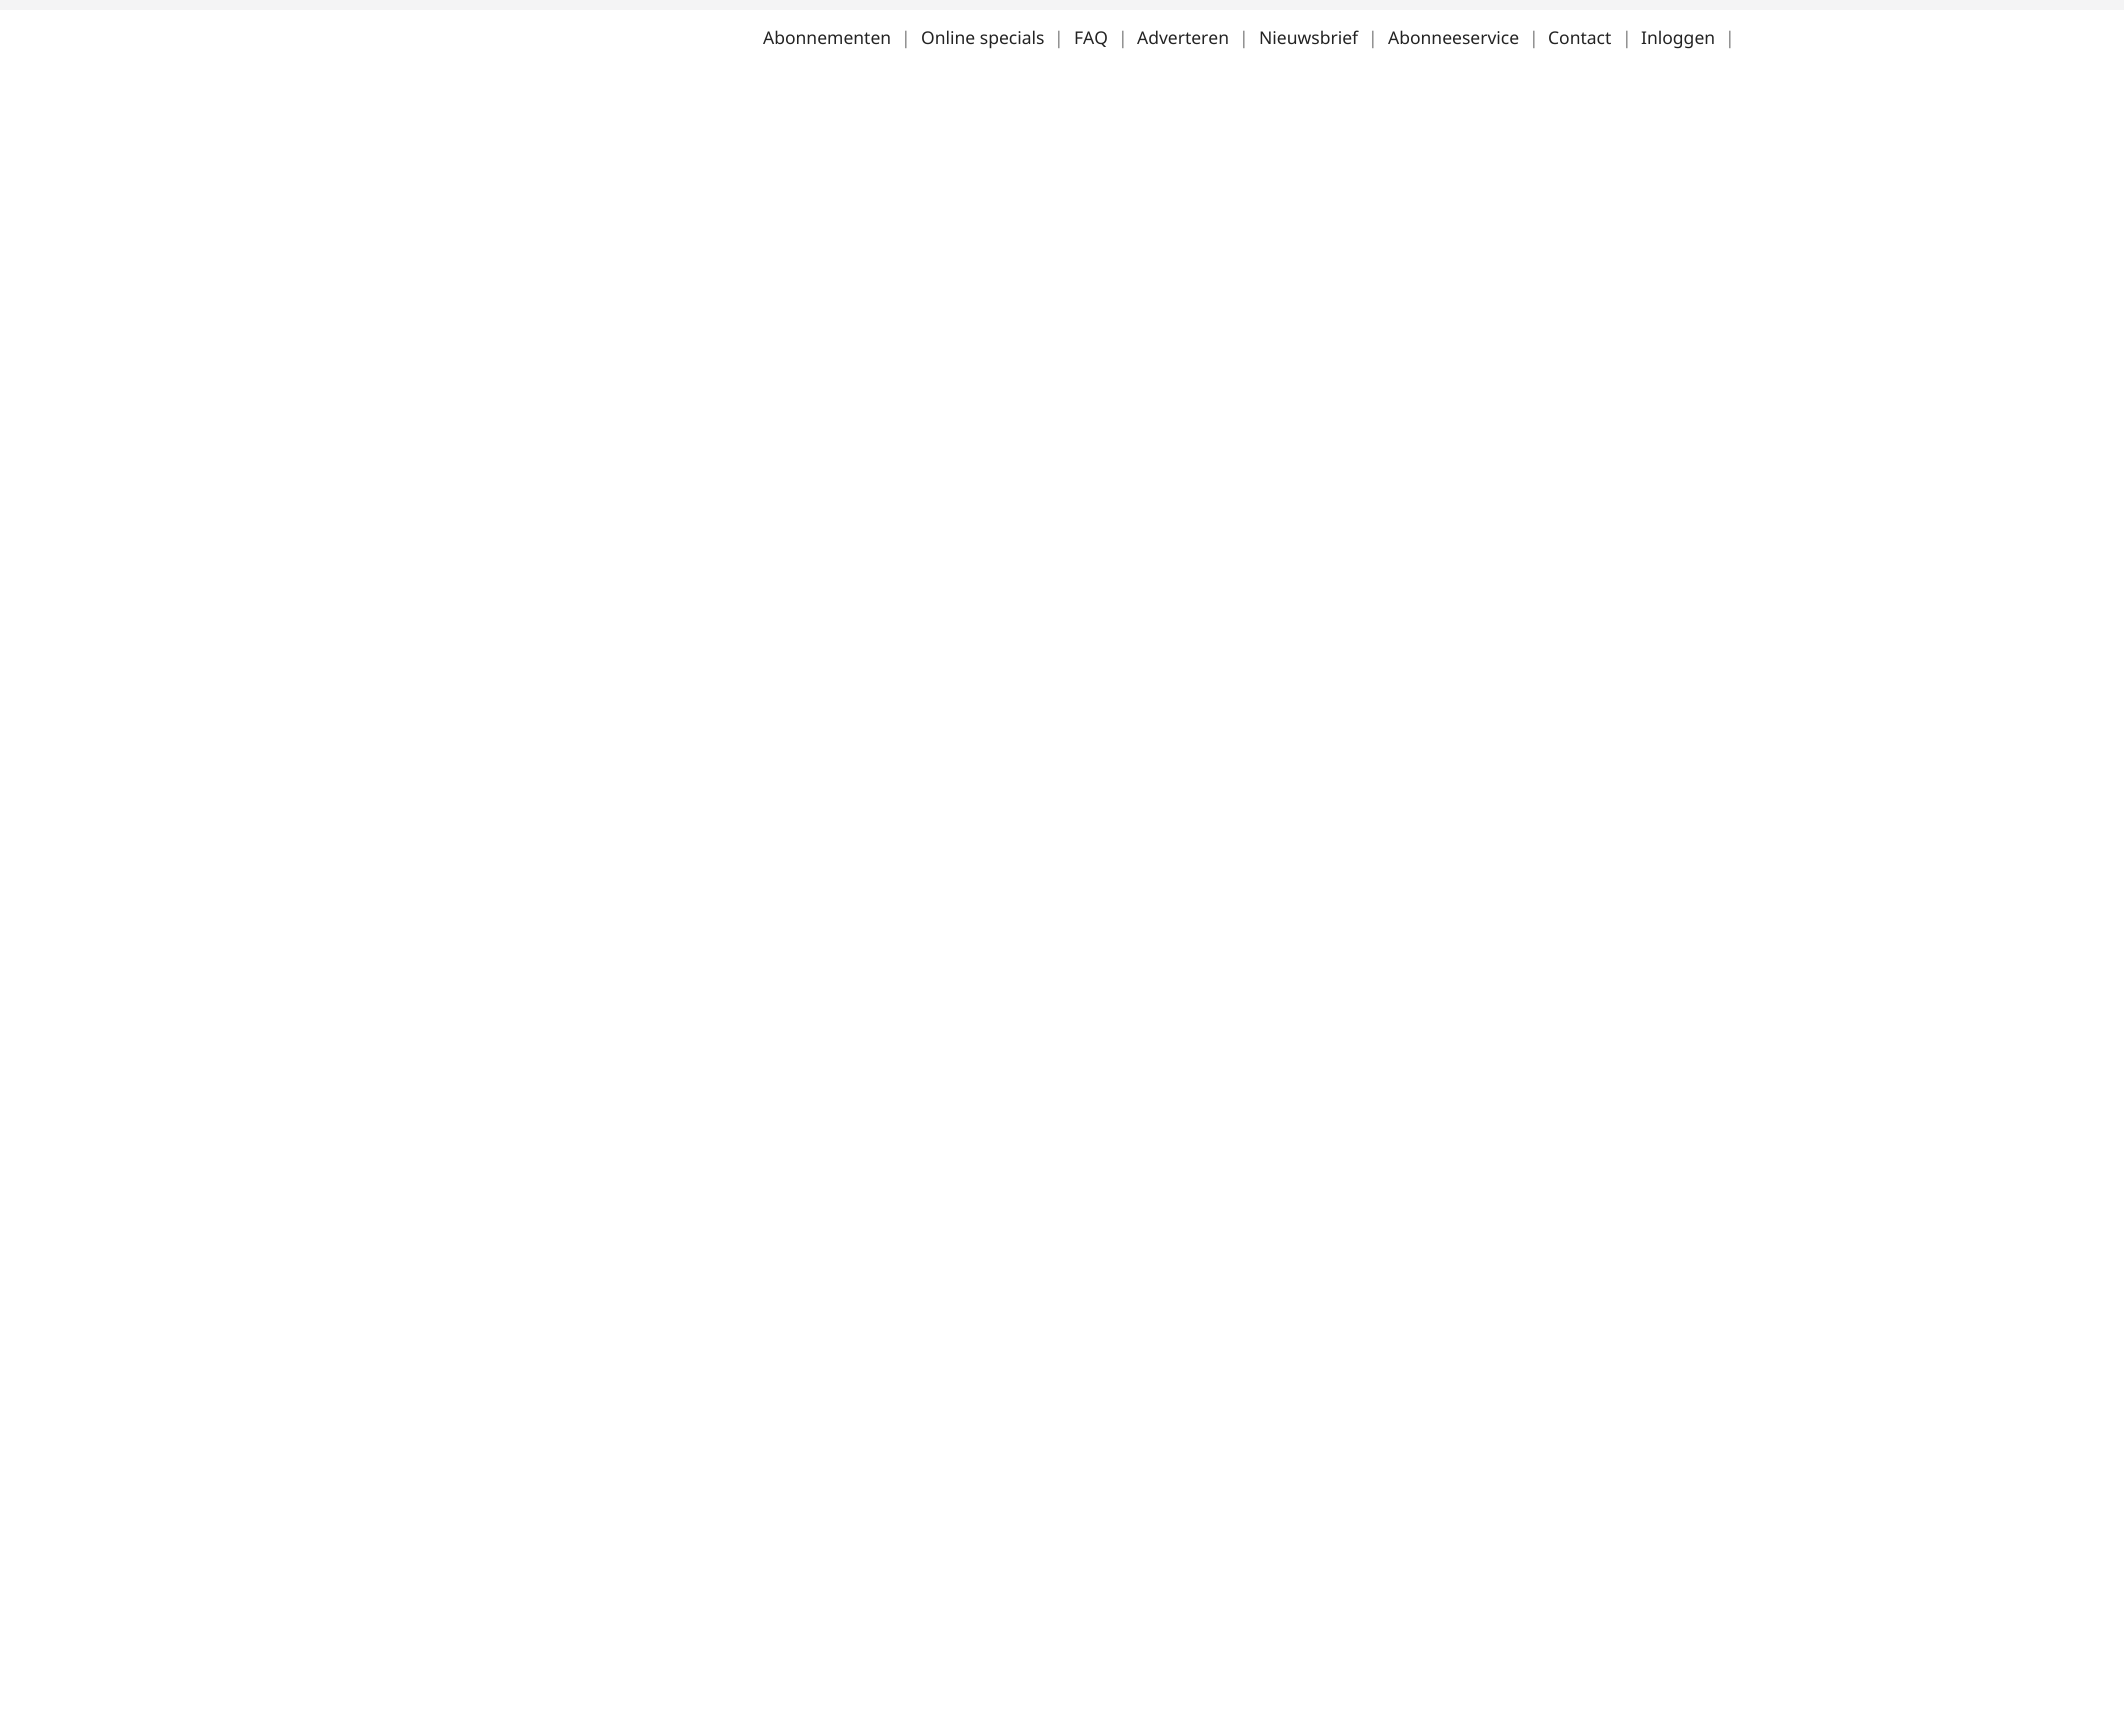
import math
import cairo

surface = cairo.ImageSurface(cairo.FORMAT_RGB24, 2124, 1731)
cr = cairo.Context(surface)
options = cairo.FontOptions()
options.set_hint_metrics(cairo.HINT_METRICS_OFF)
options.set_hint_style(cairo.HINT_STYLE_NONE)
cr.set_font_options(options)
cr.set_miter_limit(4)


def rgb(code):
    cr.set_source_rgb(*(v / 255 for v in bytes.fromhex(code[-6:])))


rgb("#f4f4f5")
cr.paint()
rgb("#ffffff")
cr.rectangle(0, 10, 2124, 1721)
cr.fill()
cr.select_font_face("Noto Sans")
cr.set_font_size(17.5)
rgb("#232323")
cr.move_to(763, 44)
cr.show_text("Abonnementen")
rgb("#7b7b7b")
cr.move_to(901, 44)
cr.show_text("|")
rgb("#232323")
cr.move_to(921, 44)
cr.show_text("Online specials")
rgb("#7b7b7b")
cr.move_to(1054, 44)
cr.show_text("|")
rgb("#232323")
cr.move_to(1074, 44)
cr.show_text("FAQ")
rgb("#7b7b7b")
cr.move_to(1118, 44)
cr.show_text("|")
rgb("#232323")
cr.move_to(1137, 44)
cr.show_text("Adverteren")
rgb("#7b7b7b")
cr.move_to(1239, 44)
cr.show_text("|")
rgb("#232323")
cr.move_to(1259, 44)
cr.show_text("Nieuwsbrief")
rgb("#7b7b7b")
cr.move_to(1368, 44)
cr.show_text("|")
rgb("#232323")
cr.move_to(1388, 44)
cr.show_text("Abonneeservice")
rgb("#7b7b7b")
cr.move_to(1529, 44)
cr.show_text("|")
rgb("#232323")
cr.move_to(1548, 44)
cr.show_text("Contact")
rgb("#7b7b7b")
cr.move_to(1622, 44)
cr.show_text("|")
rgb("#232323")
cr.move_to(1641, 44)
cr.show_text("Inloggen")
rgb("#7b7b7b")
cr.move_to(1725, 44)
cr.show_text("|")
surface.write_to_png("page.png")
